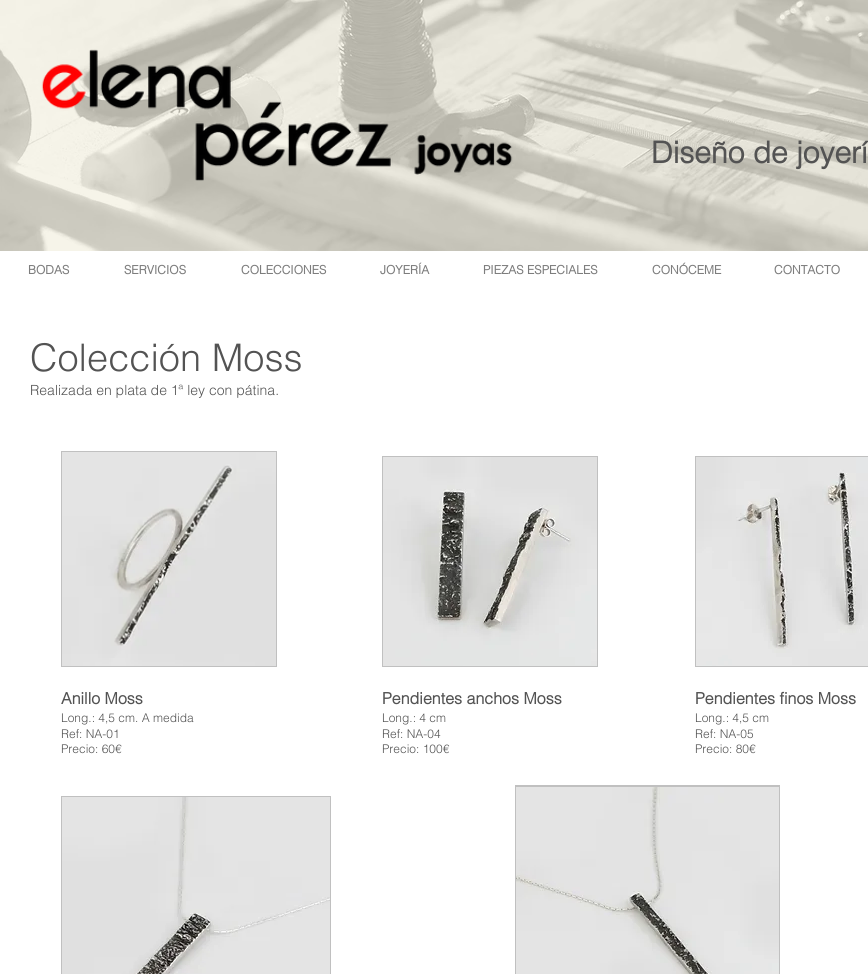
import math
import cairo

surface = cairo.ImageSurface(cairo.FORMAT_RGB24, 868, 974)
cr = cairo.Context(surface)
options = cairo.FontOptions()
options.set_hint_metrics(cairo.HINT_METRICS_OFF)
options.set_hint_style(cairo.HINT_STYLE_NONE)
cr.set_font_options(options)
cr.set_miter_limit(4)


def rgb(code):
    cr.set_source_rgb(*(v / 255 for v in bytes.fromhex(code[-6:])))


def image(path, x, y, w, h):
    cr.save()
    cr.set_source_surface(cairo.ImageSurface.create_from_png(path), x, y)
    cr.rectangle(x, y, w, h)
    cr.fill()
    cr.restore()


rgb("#ffffff")
cr.paint()
rgb("#f2f0e1")
cr.rectangle(0, 0, 868, 251)
cr.fill()
image("img/1.png", 0, 0, 868, 251)
image("img/2.png", 41, 49, 472, 132)
rgb("#c0c0c0")
cr.rectangle(61, 451, 216, 216)
cr.fill()
image("img/3.png", 62, 452, 214, 214)
cr.rectangle(382, 456, 216, 211)
cr.fill()
image("img/4.png", 383, 457, 214, 209)
cr.rectangle(695, 456, 173, 211)
cr.fill()
image("img/5.png", 696, 457, 172, 209)
cr.rectangle(61, 796, 270, 178)
cr.fill()
image("img/6.png", 62, 797, 268, 177)
cr.rectangle(515, 785, 265, 189)
cr.fill()
image("img/7.png", 516, 787, 263, 187)
cr.select_font_face("helvetica", cairo.FONT_SLANT_NORMAL, cairo.FONT_WEIGHT_BOLD)
cr.set_font_size(30)
rgb("#535353")
cr.move_to(651, 163)
cr.show_text("Diseño de joyerí")
cr.set_font_size(12)
rgb("#7d7d7d")
for x, y, s in [
    (28, 274, "BODAS"),
    (124, 274, "SERVICIOS"),
    (241, 274, "COLECCIONES"),
    (380, 274, "JOYERÍA"),
    (483, 274, "PIEZAS ESPECIALES"),
    (652, 274, "CONÓCEME"),
    (774, 274, "CONTACTO"),
]:
    cr.move_to(x, y)
    cr.show_text(s)
cr.select_font_face("helvetica Light")
cr.set_font_size(38)
rgb("#535353")
cr.move_to(30, 371)
cr.show_text("Colección Moss")
cr.set_font_size(14)
cr.move_to(30, 395)
cr.show_text("Realizada en plata de 1ª ley con pátina.")
cr.select_font_face("helvetica", cairo.FONT_SLANT_NORMAL, cairo.FONT_WEIGHT_BOLD)
cr.set_font_size(16)
cr.move_to(61, 704)
cr.show_text("Anillo Moss")
cr.select_font_face("helvetica Light")
cr.set_font_size(12)
for x, y, s in [
    (61, 722, "Long.: 4,5 cm. A medida"),
    (61, 738, "Ref: NA-01"),
    (61, 753, "Precio: 60€"),
]:
    cr.move_to(x, y)
    cr.show_text(s)
cr.select_font_face("helvetica", cairo.FONT_SLANT_NORMAL, cairo.FONT_WEIGHT_BOLD)
cr.set_font_size(16)
cr.move_to(382, 704)
cr.show_text("Pendientes anchos Moss")
cr.select_font_face("helvetica Light")
cr.set_font_size(12)
for x, y, s in [
    (382, 722, "Long.: 4 cm"),
    (382, 738, "Ref: NA-04"),
    (382, 753, "Precio: 100€"),
]:
    cr.move_to(x, y)
    cr.show_text(s)
cr.select_font_face("helvetica", cairo.FONT_SLANT_NORMAL, cairo.FONT_WEIGHT_BOLD)
cr.set_font_size(16)
cr.move_to(695, 704)
cr.show_text("Pendientes finos Moss")
cr.select_font_face("helvetica Light")
cr.set_font_size(12)
for x, y, s in [
    (695, 722, "Long.: 4,5 cm"),
    (695, 738, "Ref: NA-05"),
    (695, 753, "Precio: 80€"),
]:
    cr.move_to(x, y)
    cr.show_text(s)
surface.write_to_png("page.png")
